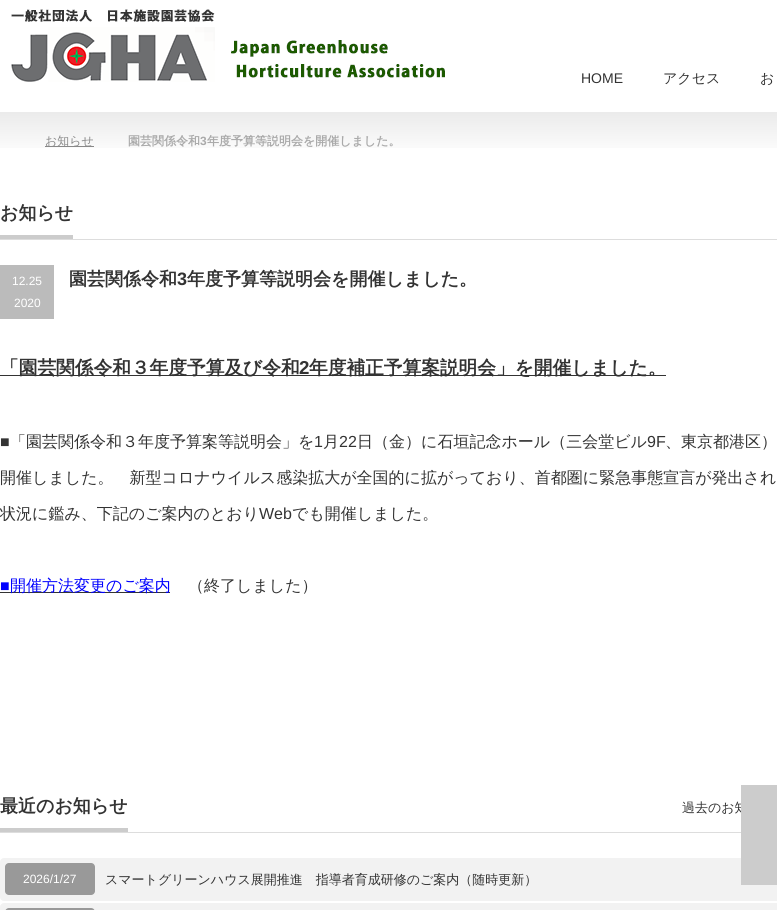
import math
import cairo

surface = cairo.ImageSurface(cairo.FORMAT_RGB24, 777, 910)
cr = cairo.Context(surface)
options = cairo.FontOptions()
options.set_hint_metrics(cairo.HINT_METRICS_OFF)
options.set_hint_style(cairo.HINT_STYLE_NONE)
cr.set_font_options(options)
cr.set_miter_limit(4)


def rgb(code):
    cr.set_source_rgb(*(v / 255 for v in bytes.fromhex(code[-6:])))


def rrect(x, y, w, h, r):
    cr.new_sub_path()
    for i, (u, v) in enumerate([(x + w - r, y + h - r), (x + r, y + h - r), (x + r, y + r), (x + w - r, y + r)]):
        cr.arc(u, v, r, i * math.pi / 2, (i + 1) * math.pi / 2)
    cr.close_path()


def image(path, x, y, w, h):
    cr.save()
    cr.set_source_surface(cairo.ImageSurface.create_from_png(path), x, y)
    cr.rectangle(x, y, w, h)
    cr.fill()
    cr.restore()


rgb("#ffffff")
cr.paint()
image("img/1.png", 11, 9, 434, 73)
image("img/2.png", 0, 112, 777, 36)
for x, y, w, h, color in [
    (45, 146, 49, 1, "#888888"),
    (0, 239, 777, 1, "#dddddd"),
    (0, 235, 73, 4, "#cccccc"),
    (0, 265, 54, 54, "#bbbbbb"),
    (0, 375, 666, 1, "#333333"),
    (0, 592, 170, 1, "#333333"),
    (0, 832, 741, 1, "#dddddd"),
    (0, 828, 128, 4, "#cccccc"),
]:
    rgb(color)
    cr.rectangle(x, y, w, h)
    cr.fill()
rgb("#f2f2f2")
rrect(0, 858, 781, 43, 4)
cr.fill()
rgb("#999999")
rrect(5, 863, 90, 32, 4)
cr.fill()
rgb("#f2f2f2")
rrect(0, 903, 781, 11, 4)
cr.fill()
rgb("#999999")
rrect(5, 908, 90, 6, 4)
cr.fill()
cr.select_font_face("Liberation Sans")
cr.set_font_size(14)
rgb("#333333")
cr.move_to(581, 83)
cr.show_text("HOME")
cr.select_font_face("WenQuanYi Zen Hei Medium")
cr.move_to(663, 83)
cr.show_text("アクセス")
cr.move_to(760, 83)
cr.show_text("お")
cr.set_font_size(12)
rgb("#888888")
cr.move_to(45, 145)
cr.show_text("お知らせ")
cr.select_font_face("WenQuanYi Zen Hei", cairo.FONT_SLANT_NORMAL, cairo.FONT_WEIGHT_BOLD)
rgb("#aaaaaa")
cr.move_to(128, 145)
cr.show_text("園芸関係令和")
cr.select_font_face("Liberation Sans", cairo.FONT_SLANT_NORMAL, cairo.FONT_WEIGHT_BOLD)
cr.move_to(200, 145)
cr.show_text("3")
cr.select_font_face("WenQuanYi Zen Hei", cairo.FONT_SLANT_NORMAL, cairo.FONT_WEIGHT_BOLD)
cr.move_to(207, 145)
cr.show_text("年度予算等説明会を開催しました。")
cr.set_font_size(18)
rgb("#333333")
cr.move_to(0, 219)
cr.show_text("お知らせ")
cr.select_font_face("Liberation Sans")
cr.set_font_size(12)
rgb("#ffffff")
cr.move_to(12, 285)
cr.show_text("12.25")
cr.move_to(14, 307)
cr.show_text("2020")
cr.select_font_face("WenQuanYi Zen Hei", cairo.FONT_SLANT_NORMAL, cairo.FONT_WEIGHT_BOLD)
cr.set_font_size(18)
rgb("#333333")
cr.move_to(69, 285)
cr.show_text("園芸関係令和")
cr.select_font_face("Liberation Sans", cairo.FONT_SLANT_NORMAL, cairo.FONT_WEIGHT_BOLD)
cr.move_to(177, 285)
cr.show_text("3")
cr.select_font_face("WenQuanYi Zen Hei", cairo.FONT_SLANT_NORMAL, cairo.FONT_WEIGHT_BOLD)
cr.move_to(187, 285)
cr.show_text("年度予算等説明会を開催しました。")
cr.set_font_size(18.7)
cr.move_to(0, 374)
cr.show_text("「園芸関係令和３年度予算及び令和")
cr.select_font_face("Liberation Sans", cairo.FONT_SLANT_NORMAL, cairo.FONT_WEIGHT_BOLD)
cr.move_to(299, 374)
cr.show_text("2")
cr.select_font_face("WenQuanYi Zen Hei", cairo.FONT_SLANT_NORMAL, cairo.FONT_WEIGHT_BOLD)
cr.move_to(309, 374)
cr.show_text("年度補正予算案説明会」を開催しました。")
cr.select_font_face("Liberation Sans")
cr.set_font_size(16)
cr.move_to(0, 447)
cr.show_text("■")
cr.select_font_face("WenQuanYi Zen Hei Medium")
cr.move_to(10, 447)
cr.show_text("「園芸関係令和３年度予算案等説明会」を")
cr.select_font_face("Liberation Sans")
cr.move_to(314, 447)
cr.show_text("1")
cr.select_font_face("WenQuanYi Zen Hei Medium")
cr.move_to(323, 447)
cr.show_text("月")
cr.select_font_face("Liberation Sans")
cr.move_to(339, 447)
cr.show_text("22")
cr.select_font_face("WenQuanYi Zen Hei Medium")
cr.move_to(357, 447)
cr.show_text("日（金）に石垣記念ホール（三会堂ビル")
cr.select_font_face("Liberation Sans")
cr.move_to(647, 447)
cr.show_text("9F")
cr.select_font_face("WenQuanYi Zen Hei Medium")
for x, y, s in [
    (665, 447, "、東京都港区）"),
    (0, 483, "開催しました。　新型コロナウイルス感染拡大が全国的に拡がっており、首都圏に緊急事態宣言が発出され"),
    (0, 519, "状況に鑑み、下記のご案内のとおり"),
]:
    cr.move_to(x, y)
    cr.show_text(s)
cr.select_font_face("Liberation Sans")
cr.move_to(259, 519)
cr.show_text("Web")
cr.select_font_face("WenQuanYi Zen Hei Medium")
cr.move_to(292, 519)
cr.show_text("でも開催しました。")
cr.select_font_face("Liberation Sans")
rgb("#0000ff")
cr.move_to(0, 591)
cr.show_text("■")
cr.select_font_face("WenQuanYi Zen Hei Medium")
cr.move_to(10, 591)
cr.show_text("開催方法変更のご案内")
rgb("#333333")
cr.move_to(188, 591)
cr.show_text("（終了しました）")
cr.select_font_face("WenQuanYi Zen Hei", cairo.FONT_SLANT_NORMAL, cairo.FONT_WEIGHT_BOLD)
cr.set_font_size(18)
cr.move_to(0, 812)
cr.show_text("最近のお知らせ")
cr.select_font_face("WenQuanYi Zen Hei Medium")
cr.set_font_size(13)
cr.move_to(682, 812)
cr.show_text("過去のお知")
cr.select_font_face("Liberation Sans")
cr.set_font_size(12)
rgb("#ffffff")
cr.move_to(23, 883)
cr.show_text("2026/1/27")
cr.select_font_face("WenQuanYi Zen Hei Medium")
cr.set_font_size(13)
rgb("#333333")
cr.move_to(105, 884)
cr.show_text("スマートグリーンハウス展開推進　指導者育成研修のご案内（随時更新）")
rgb("#cccccc")
cr.rectangle(741, 785, 36, 100)
cr.fill()
surface.write_to_png("page.png")
